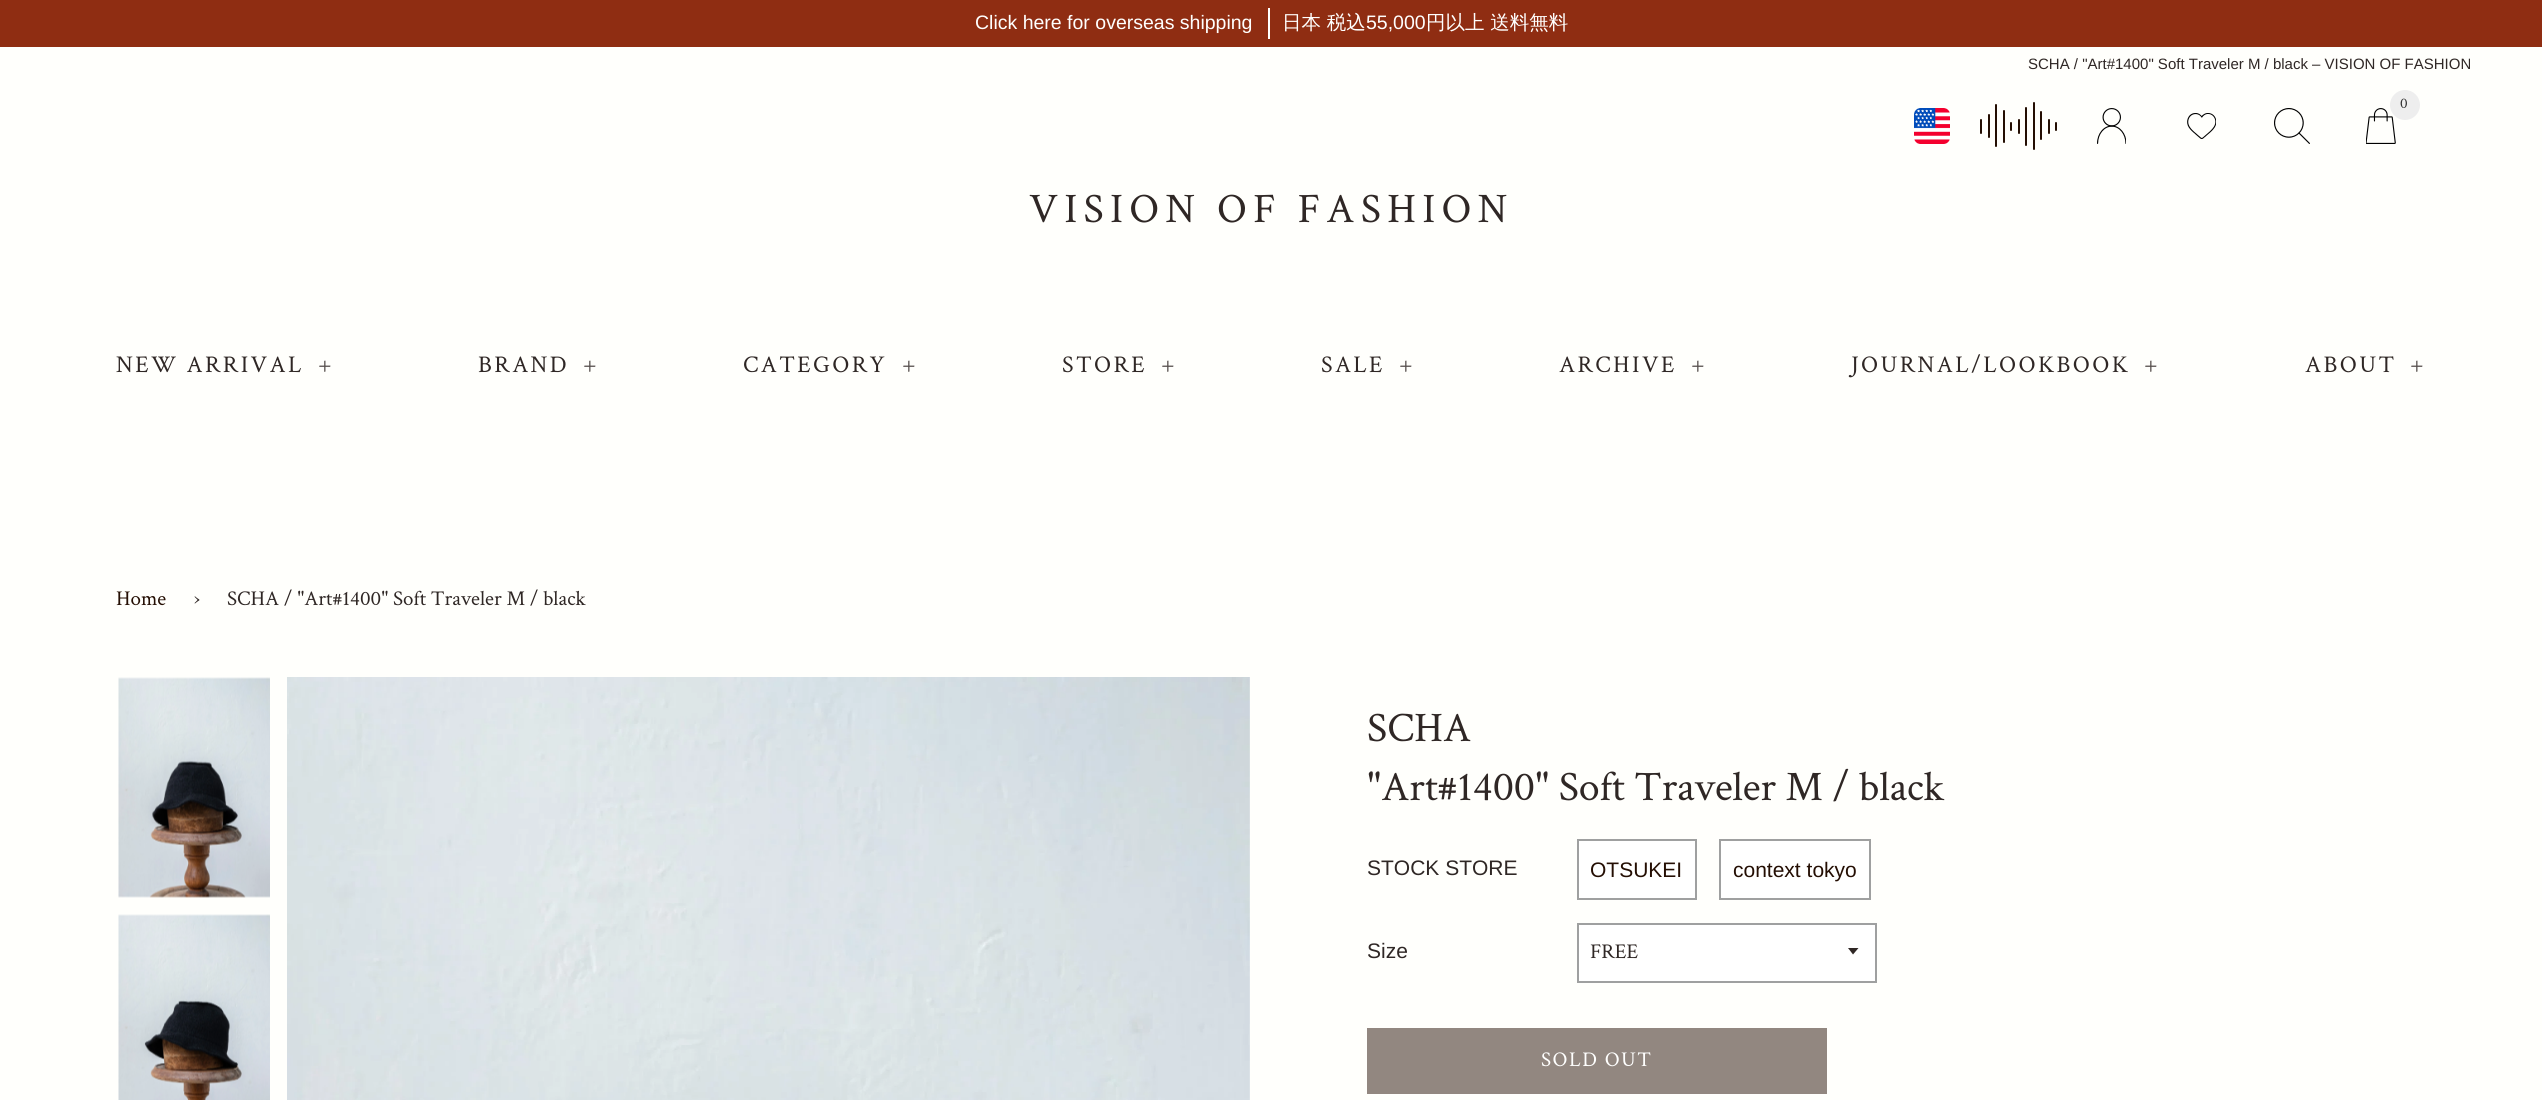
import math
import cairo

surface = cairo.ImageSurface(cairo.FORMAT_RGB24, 2542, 1100)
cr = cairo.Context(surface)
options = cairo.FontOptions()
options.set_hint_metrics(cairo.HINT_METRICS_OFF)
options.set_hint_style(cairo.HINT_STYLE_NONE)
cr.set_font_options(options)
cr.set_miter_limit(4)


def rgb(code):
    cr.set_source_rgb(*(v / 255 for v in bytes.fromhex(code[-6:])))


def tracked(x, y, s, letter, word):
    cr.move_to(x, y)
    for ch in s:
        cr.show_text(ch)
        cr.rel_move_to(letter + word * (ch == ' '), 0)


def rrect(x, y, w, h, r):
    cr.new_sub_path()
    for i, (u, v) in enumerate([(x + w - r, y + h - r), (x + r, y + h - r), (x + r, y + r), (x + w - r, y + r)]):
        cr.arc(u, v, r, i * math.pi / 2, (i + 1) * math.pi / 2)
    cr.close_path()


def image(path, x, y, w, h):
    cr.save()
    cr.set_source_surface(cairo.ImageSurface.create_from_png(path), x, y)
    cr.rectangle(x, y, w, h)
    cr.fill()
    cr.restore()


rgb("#fffffc")
cr.paint()
rgb("#8f2d12")
cr.rectangle(0, 0, 2542, 47)
cr.fill()
rgb("#ffffff")
cr.rectangle(1268, 8, 2, 31)
cr.fill()
image("img/1.png", 1914, 108, 36, 36)
rgb("#240e03")
rrect(1980, 119, 2, 15, 1)
cr.fill()
rrect(1988, 114, 2, 24, 1)
cr.fill()
rrect(1995, 104, 2, 43, 1)
cr.fill()
rrect(2003, 110, 2, 33, 1)
cr.fill()
rrect(2010, 122, 2, 9, 1)
cr.fill()
rrect(2018, 119, 2, 15, 1)
cr.fill()
rrect(2025, 107, 2, 39, 1)
cr.fill()
rrect(2033, 102, 2, 48, 1)
cr.fill()
rrect(2040, 111, 2, 29, 1)
cr.fill()
rrect(2048, 119, 2, 15, 1)
cr.fill()
rrect(2055, 122, 2, 9, 1)
cr.fill()
image("img/2.png", 2097, 108, 29, 36)
image("img/3.png", 2187, 113, 29, 26)
image("img/4.png", 2274, 108, 36, 36)
image("img/5.png", 2366, 108, 30, 36)
rgb("#eeeeee")
cr.arc(2405, 105, 15, 0, 2 * math.pi)
cr.fill()
image("img/6.png", 118, 677, 152, 221)
image("img/7.png", 118, 914, 152, 186)
image("img/8.png", 287, 677, 963, 423)
rgb("#ffffff")
cr.rectangle(1578, 840, 118, 59)
cr.fill_preserve()
rgb("#9fa0a0")
cr.stroke()
rgb("#ffffff")
cr.rectangle(1720, 840, 150, 59)
cr.fill_preserve()
rgb("#9fa0a0")
cr.stroke()
rgb("#ffffff")
cr.rectangle(1579, 925, 296, 56)
cr.fill()
rgb("#2f2725")
cr.new_path()
cr.move_to(1848, 948)
cr.line_to(1853, 954.5)
cr.line_to(1858.5, 948)
cr.close_path()
cr.fill()
cr.rectangle(1578, 924, 298, 58)
rgb("#9fa0a0")
cr.stroke()
rgb("#928780")
cr.rectangle(1367, 1028, 460, 66)
cr.fill()
cr.select_font_face("Liberation Sans")
cr.set_font_size(19.5)
rgb("#fffffe")
cr.move_to(975, 29)
cr.show_text("Click here for overseas shipping")
cr.select_font_face("WenQuanYi Zen Hei Medium")
cr.move_to(1282, 29)
cr.show_text("日本 税込")
cr.select_font_face("Liberation Sans")
cr.move_to(1366, 29)
cr.show_text("55,000")
cr.select_font_face("WenQuanYi Zen Hei Medium")
cr.move_to(1426, 29)
cr.show_text("円以上 送料無料")
cr.select_font_face("Liberation Sans")
cr.set_font_size(15)
rgb("#2f2725")
cr.move_to(2028, 69)
cr.show_text("SCHA / \"Art#1400\" Soft Traveler M / black – VISION OF FASHION")
cr.select_font_face("Crimson Text")
cr.set_font_size(42)
tracked(1029, 222, "VISION OF FASHION", 6.25, 0)
cr.set_font_size(15)
rgb("#333333")
cr.move_to(2400, 108)
cr.show_text("0")
cr.set_font_size(24)
rgb("#2f2725")
tracked(116, 372, "NEW ARRIVAL", 2.4, 0)
rgb("#595250")
tracked(318, 372, "+", 2.4, 0)
rgb("#2f2725")
tracked(478, 372, "BRAND", 2.4, 0)
rgb("#595250")
tracked(583, 372, "+", 2.4, 0)
rgb("#2f2725")
tracked(743, 372, "CATEGORY", 2.4, 0)
rgb("#595250")
tracked(902, 372, "+", 2.4, 0)
rgb("#2f2725")
tracked(1062, 372, "STORE", 2.4, 0)
rgb("#595250")
tracked(1161, 372, "+", 2.4, 0)
rgb("#2f2725")
tracked(1321, 372, "SALE", 2.4, 0)
rgb("#595250")
tracked(1399, 372, "+", 2.4, 0)
rgb("#2f2725")
tracked(1559, 372, "ARCHIVE", 2.4, 0)
rgb("#595250")
tracked(1691, 372, "+", 2.4, 0)
rgb("#2f2725")
tracked(1851, 372, "JOURNAL/LOOKBOOK", 2.4, 0)
rgb("#595250")
tracked(2144, 372, "+", 2.4, 0)
rgb("#2f2725")
tracked(2305, 372, "ABOUT", 2.4, 0)
rgb("#595250")
tracked(2410, 372, "+", 2.4, 0)
cr.set_font_size(21)
rgb("#240e03")
cr.move_to(116, 605)
cr.show_text("Home")
rgb("#2f2725")
cr.move_to(194, 605)
cr.show_text("›")
cr.move_to(227, 605)
cr.show_text("SCHA / \"Art#1400\" Soft Traveler M / black")
cr.set_font_size(42)
cr.move_to(1367, 741)
cr.show_text("SCHA")
cr.move_to(1367, 800)
cr.show_text("\"Art#1400\" Soft Traveler M / black")
cr.select_font_face("Liberation Sans")
cr.set_font_size(21)
cr.move_to(1367, 875)
cr.show_text("STOCK STORE")
rgb("#240e03")
cr.move_to(1590, 877)
cr.show_text("OTSUKEI")
cr.move_to(1733, 877)
cr.show_text("context tokyo")
rgb("#2f2725")
cr.move_to(1367, 958)
cr.show_text("Size")
cr.select_font_face("Crimson Text")
cr.move_to(1590, 958)
cr.show_text("FREE")
rgb("#fffffe")
tracked(1541, 1066, "SOLD OUT", 1.5, 0)
surface.write_to_png("page.png")
